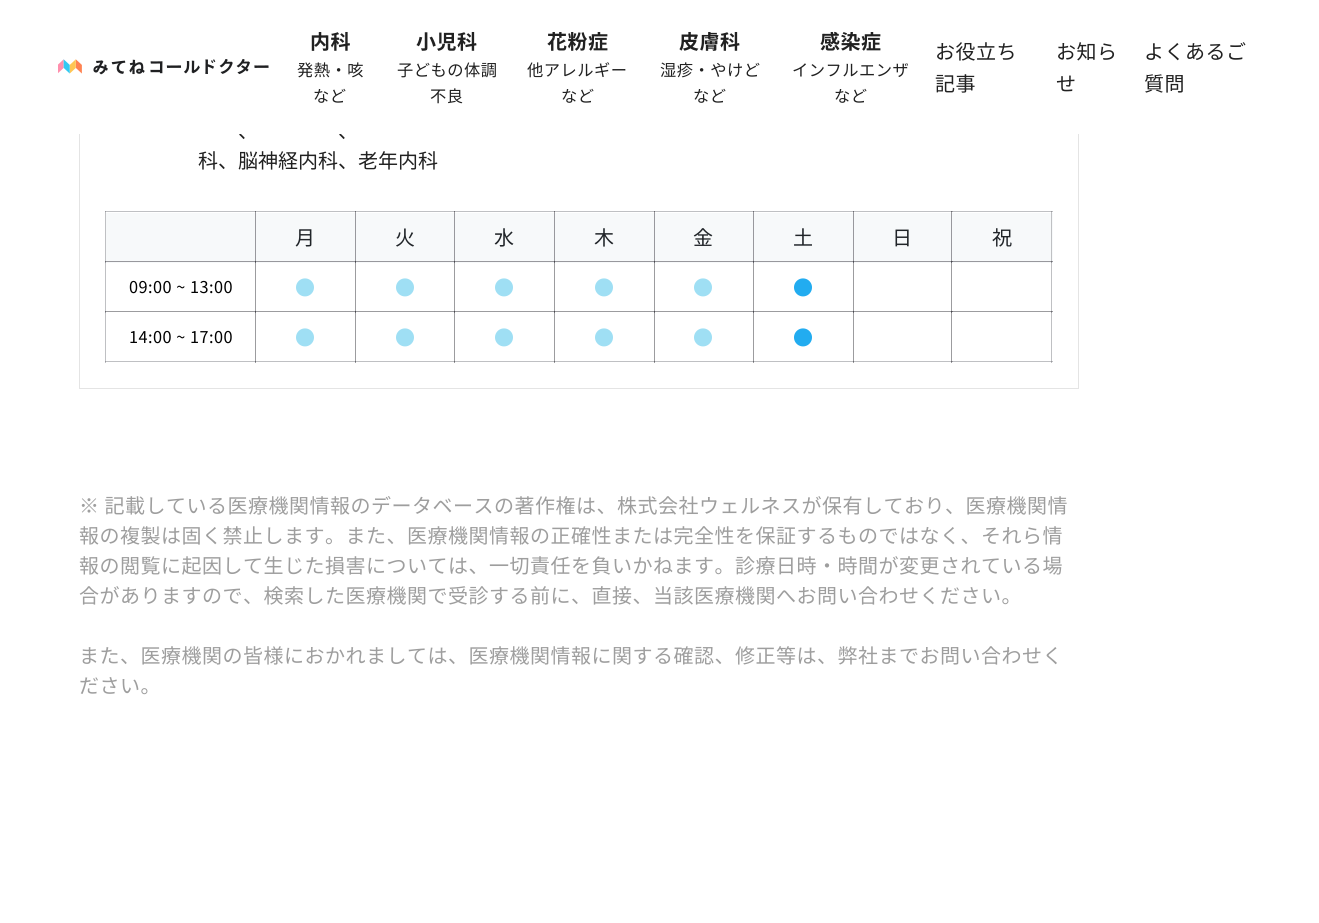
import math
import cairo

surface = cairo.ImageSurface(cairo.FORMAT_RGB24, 1319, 923)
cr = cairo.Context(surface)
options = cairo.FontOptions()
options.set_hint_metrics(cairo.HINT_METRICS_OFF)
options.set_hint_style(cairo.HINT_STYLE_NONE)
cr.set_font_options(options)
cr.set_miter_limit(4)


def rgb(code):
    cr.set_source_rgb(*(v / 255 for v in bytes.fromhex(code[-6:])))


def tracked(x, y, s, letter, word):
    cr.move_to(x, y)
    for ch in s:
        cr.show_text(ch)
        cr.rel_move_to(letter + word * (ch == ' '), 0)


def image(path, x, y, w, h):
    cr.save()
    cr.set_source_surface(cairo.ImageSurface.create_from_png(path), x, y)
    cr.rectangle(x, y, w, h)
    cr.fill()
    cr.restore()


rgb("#ffffff")
cr.paint()
for x, y, w, h, color in [
    (255, 211, 1, 2, "#9c9c9f"),
    (355, 211, 1, 2, "#9c9c9f"),
    (454, 211, 1, 2, "#9c9c9f"),
    (554, 211, 1, 2, "#9c9c9f"),
    (654, 211, 1, 2, "#9c9c9f"),
    (753, 211, 1, 2, "#9c9c9f"),
    (853, 211, 1, 2, "#9c9c9f"),
    (951, 211, 1, 2, "#9c9c9f"),
    (255, 261, 1, 52, "#9c9c9f"),
    (355, 261, 1, 52, "#9c9c9f"),
    (454, 261, 1, 52, "#9c9c9f"),
    (554, 261, 1, 52, "#9c9c9f"),
    (654, 261, 1, 52, "#9c9c9f"),
    (753, 261, 1, 52, "#9c9c9f"),
    (853, 261, 1, 52, "#9c9c9f"),
    (951, 261, 1, 52, "#9c9c9f"),
    (105, 311, 151, 1, "#9c9c9f"),
    (255, 311, 1, 52, "#9c9c9f"),
    (255, 311, 1, 2, "#6b6b70"),
    (255, 311, 101, 1, "#9c9c9f"),
    (255, 311, 1, 1, "#47474e"),
    (355, 311, 1, 52, "#9c9c9f"),
    (355, 311, 1, 2, "#6b6b70"),
    (355, 311, 100, 1, "#9c9c9f"),
    (355, 311, 1, 1, "#47474e"),
    (454, 311, 1, 52, "#9c9c9f"),
    (454, 311, 1, 2, "#6b6b70"),
    (454, 311, 101, 1, "#9c9c9f"),
    (454, 311, 1, 1, "#47474e"),
    (554, 311, 1, 52, "#9c9c9f"),
    (554, 311, 1, 2, "#6b6b70"),
    (554, 311, 101, 1, "#9c9c9f"),
    (554, 311, 1, 1, "#47474e"),
    (654, 311, 1, 52, "#9c9c9f"),
    (654, 311, 1, 2, "#6b6b70"),
    (654, 311, 100, 1, "#9c9c9f"),
    (654, 311, 1, 1, "#47474e"),
    (753, 311, 1, 52, "#9c9c9f"),
    (753, 311, 1, 2, "#6b6b70"),
    (753, 311, 101, 1, "#9c9c9f"),
    (753, 311, 1, 1, "#47474e"),
    (853, 311, 1, 52, "#9c9c9f"),
    (853, 311, 1, 2, "#6b6b70"),
    (853, 311, 100, 1, "#9c9c9f"),
    (853, 311, 1, 1, "#47474e"),
    (951, 311, 1, 52, "#9c9c9f"),
    (951, 311, 1, 2, "#6b6b70"),
    (951, 311, 102, 1, "#9c9c9f"),
    (951, 311, 2, 1, "#6b6b70"),
    (951, 311, 1, 1, "#47474e"),
]:
    rgb(color)
    cr.rectangle(x, y, w, h)
    cr.fill()
cr.rectangle(79.5, -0.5, 999, 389)
rgb("#e4e4e4")
cr.set_line_width(1)
cr.stroke()
for x, y, w, h, color in [
    (105, 211, 848, 1, "#bfc0c3"),
    (255, 211, 1, 1, "#69696f"),
    (355, 211, 1, 1, "#69696f"),
    (454, 211, 1, 1, "#69696f"),
    (554, 211, 1, 1, "#69696f"),
    (654, 211, 1, 1, "#69696f"),
    (753, 211, 1, 1, "#69696f"),
    (853, 211, 1, 1, "#69696f"),
    (854, 213, 199, 50, "#f7f9fa"),
    (1051, 211, 1, 152, "#bfc0c3"),
    (1051, 261, 1, 2, "#98989d"),
    (1051, 311, 1, 2, "#98989d"),
    (1051, 311, 1, 1, "#69696f"),
    (105, 361, 948, 1, "#bfc0c3"),
    (255, 361, 1, 1, "#69696f"),
    (355, 361, 1, 1, "#69696f"),
    (454, 361, 1, 1, "#69696f"),
    (554, 361, 1, 1, "#69696f"),
    (654, 361, 1, 1, "#69696f"),
    (753, 361, 1, 1, "#69696f"),
    (853, 361, 1, 1, "#69696f"),
    (951, 361, 2, 1, "#98989d"),
    (951, 361, 1, 1, "#69696f"),
    (1051, 361, 1, 1, "#98989d"),
    (105, 211, 1, 152, "#bfc0c3"),
    (105, 211, 1, 1, "#98989d"),
    (105, 261, 1, 2, "#98989d"),
    (105, 261, 1, 1, "#69696f"),
    (105, 311, 1, 2, "#98989d"),
    (105, 361, 1, 1, "#98989d"),
    (105, 311, 1, 1, "#69696f"),
    (106, 213, 149, 50, "#f7f9fa"),
    (255, 213, 1, 50, "#98989d"),
    (106, 261, 150, 1, "#98989d"),
    (255, 261, 1, 2, "#69696f"),
    (255, 261, 1, 1, "#47474e"),
    (256, 213, 99, 50, "#f7f9fa"),
    (256, 261, 99, 1, "#98989d"),
    (356, 213, 98, 50, "#f7f9fa"),
    (355, 213, 1, 50, "#98989d"),
    (454, 213, 1, 50, "#98989d"),
    (355, 261, 1, 2, "#69696f"),
    (355, 261, 100, 1, "#98989d"),
    (355, 261, 1, 1, "#47474e"),
    (454, 261, 1, 2, "#69696f"),
    (454, 261, 1, 1, "#47474e"),
    (455, 213, 99, 50, "#f7f9fa"),
    (455, 261, 99, 1, "#98989d"),
    (555, 213, 99, 50, "#f7f9fa"),
    (554, 213, 1, 50, "#98989d"),
    (554, 261, 1, 2, "#69696f"),
    (554, 261, 100, 1, "#98989d"),
    (554, 261, 1, 1, "#47474e"),
    (655, 213, 98, 50, "#f7f9fa"),
    (654, 213, 1, 50, "#98989d"),
    (753, 213, 1, 50, "#98989d"),
    (654, 261, 1, 2, "#69696f"),
    (654, 261, 100, 1, "#98989d"),
    (654, 261, 1, 1, "#47474e"),
    (753, 261, 1, 2, "#69696f"),
    (753, 261, 1, 1, "#47474e"),
    (754, 213, 99, 50, "#f7f9fa"),
    (754, 261, 99, 1, "#98989d"),
    (853, 213, 1, 50, "#98989d"),
    (951, 213, 1, 50, "#98989d"),
    (853, 261, 1, 2, "#69696f"),
    (853, 261, 100, 1, "#98989d"),
    (853, 261, 1, 1, "#47474e"),
    (951, 261, 1, 2, "#69696f"),
    (951, 211, 102, 1, "#bfc0c3"),
    (951, 211, 2, 1, "#98989d"),
    (951, 211, 1, 1, "#69696f"),
    (1051, 211, 1, 1, "#98989d"),
    (951, 261, 102, 1, "#98989d"),
    (951, 261, 2, 1, "#69696f"),
    (951, 261, 1, 1, "#47474e"),
    (1051, 261, 1, 1, "#69696f"),
]:
    rgb(color)
    cr.rectangle(x, y, w, h)
    cr.fill()
cr.select_font_face("Noto Sans JP")
cr.set_font_size(20)
rgb("#212121")
tracked(1144, 59, "よくあるご", 0.5, 0)
tracked(1144, 91, "質問", 0.5, 0)
cr.move_to(238, 138)
cr.show_text("、")
cr.move_to(338, 138)
cr.show_text("、")
rgb("#ffffff")
cr.rectangle(79, 0, 1000, 134)
cr.fill()
rgb("#212121")
for x, y, s in [
    (1056, 91, "せ"),
    (1056, 59, "お知ら"),
    (935, 91, "記事"),
    (935, 59, "お役立ち"),
]:
    tracked(x, y, s, 0.5, 0)
cr.set_font_size(16.25)
tracked(834, 102, "など", 0.5, 0)
tracked(792, 76, "インフルエンザ", 0.5, 0)
cr.select_font_face("Noto Sans JP", cairo.FONT_SLANT_NORMAL, cairo.FONT_WEIGHT_BOLD)
cr.set_font_size(20)
tracked(820, 49, "感染症", 0.5, 0)
cr.select_font_face("Noto Sans JP")
cr.set_font_size(16.25)
tracked(693, 102, "など", 0.5, 0)
tracked(660, 76, "湿疹・やけど", 0.5, 0)
cr.select_font_face("Noto Sans JP", cairo.FONT_SLANT_NORMAL, cairo.FONT_WEIGHT_BOLD)
cr.set_font_size(20)
tracked(679, 49, "皮膚科", 0.5, 0)
cr.select_font_face("Noto Sans JP")
cr.set_font_size(16.25)
tracked(561, 102, "など", 0.5, 0)
tracked(527, 76, "他アレルギー", 0.5, 0)
cr.select_font_face("Noto Sans JP", cairo.FONT_SLANT_NORMAL, cairo.FONT_WEIGHT_BOLD)
cr.set_font_size(20)
tracked(547, 49, "花粉症", 0.5, 0)
cr.select_font_face("Noto Sans JP")
cr.set_font_size(16.25)
tracked(430, 102, "不良", 0.5, 0)
tracked(397, 76, "子どもの体調", 0.5, 0)
cr.select_font_face("Noto Sans JP", cairo.FONT_SLANT_NORMAL, cairo.FONT_WEIGHT_BOLD)
cr.set_font_size(20)
tracked(416, 49, "小児科", 0.5, 0)
cr.select_font_face("Noto Sans JP")
cr.set_font_size(16.25)
tracked(313, 102, "など", 0.5, 0)
tracked(297, 76, "発熱・咳", 0.5, 0)
cr.select_font_face("Noto Sans JP", cairo.FONT_SLANT_NORMAL, cairo.FONT_WEIGHT_BOLD)
cr.set_font_size(20)
tracked(310, 49, "内科", 0.5, 0)
image("img/1.png", 58, 59, 211, 16)
cr.select_font_face("Noto Sans JP")
cr.move_to(198, 168)
cr.show_text("科、脳神経内科、老年内科")
rgb("#212529")
for x, y, s in [
    (295, 245, "月"),
    (395, 245, "火"),
    (494, 245, "水"),
    (594, 245, "木"),
    (693, 245, "金"),
    (793, 245, "土"),
    (892, 245, "日"),
    (992, 245, "祝"),
]:
    tracked(x, y, s, 0.5, 0)
cr.set_font_size(16.25)
rgb("#000000")
tracked(129, 293, "09:00 ~ 13:00", 0.5, 0)
cr.set_font_size(20)
rgb("#9fdff4")
for x, y, s in [
    (295, 295, "●"),
    (395, 295, "●"),
    (494, 295, "●"),
    (594, 295, "●"),
    (693, 295, "●"),
]:
    tracked(x, y, s, 0.5, 0)
rgb("#22acf0")
tracked(793, 295, "●", 0.5, 0)
cr.set_font_size(16.25)
rgb("#000000")
tracked(129, 343, "14:00 ~ 17:00", 0.5, 0)
cr.set_font_size(20)
rgb("#9fdff4")
for x, y, s in [
    (295, 345, "●"),
    (395, 345, "●"),
    (494, 345, "●"),
    (594, 345, "●"),
    (693, 345, "●"),
]:
    tracked(x, y, s, 0.5, 0)
rgb("#22acf0")
tracked(793, 345, "●", 0.5, 0)
rgb("#9e9e9e")
for x, y, s in [
    (79, 513, "※ 記載している医療機関情報のデータベースの著作権は、株式会社ウェルネスが保有しており、医療機関情"),
    (79, 543, "報の複製は固く禁止します。また、医療機関情報の正確性または完全性を保証するものではなく、それら情"),
    (79, 573, "報の閲覧に起因して生じた損害については、一切責任を負いかねます。診療日時・時間が変更されている場"),
    (79, 603, "合がありますので、検索した医療機関で受診する前に、直接、当該医療機関へお問い合わせください。"),
    (79, 663, "また、医療機関の皆様におかれましては、医療機関情報に関する確認、修正等は、弊社までお問い合わせく"),
    (79, 693, "ださい。"),
]:
    tracked(x, y, s, 0.5, 0)
surface.write_to_png("page.png")
